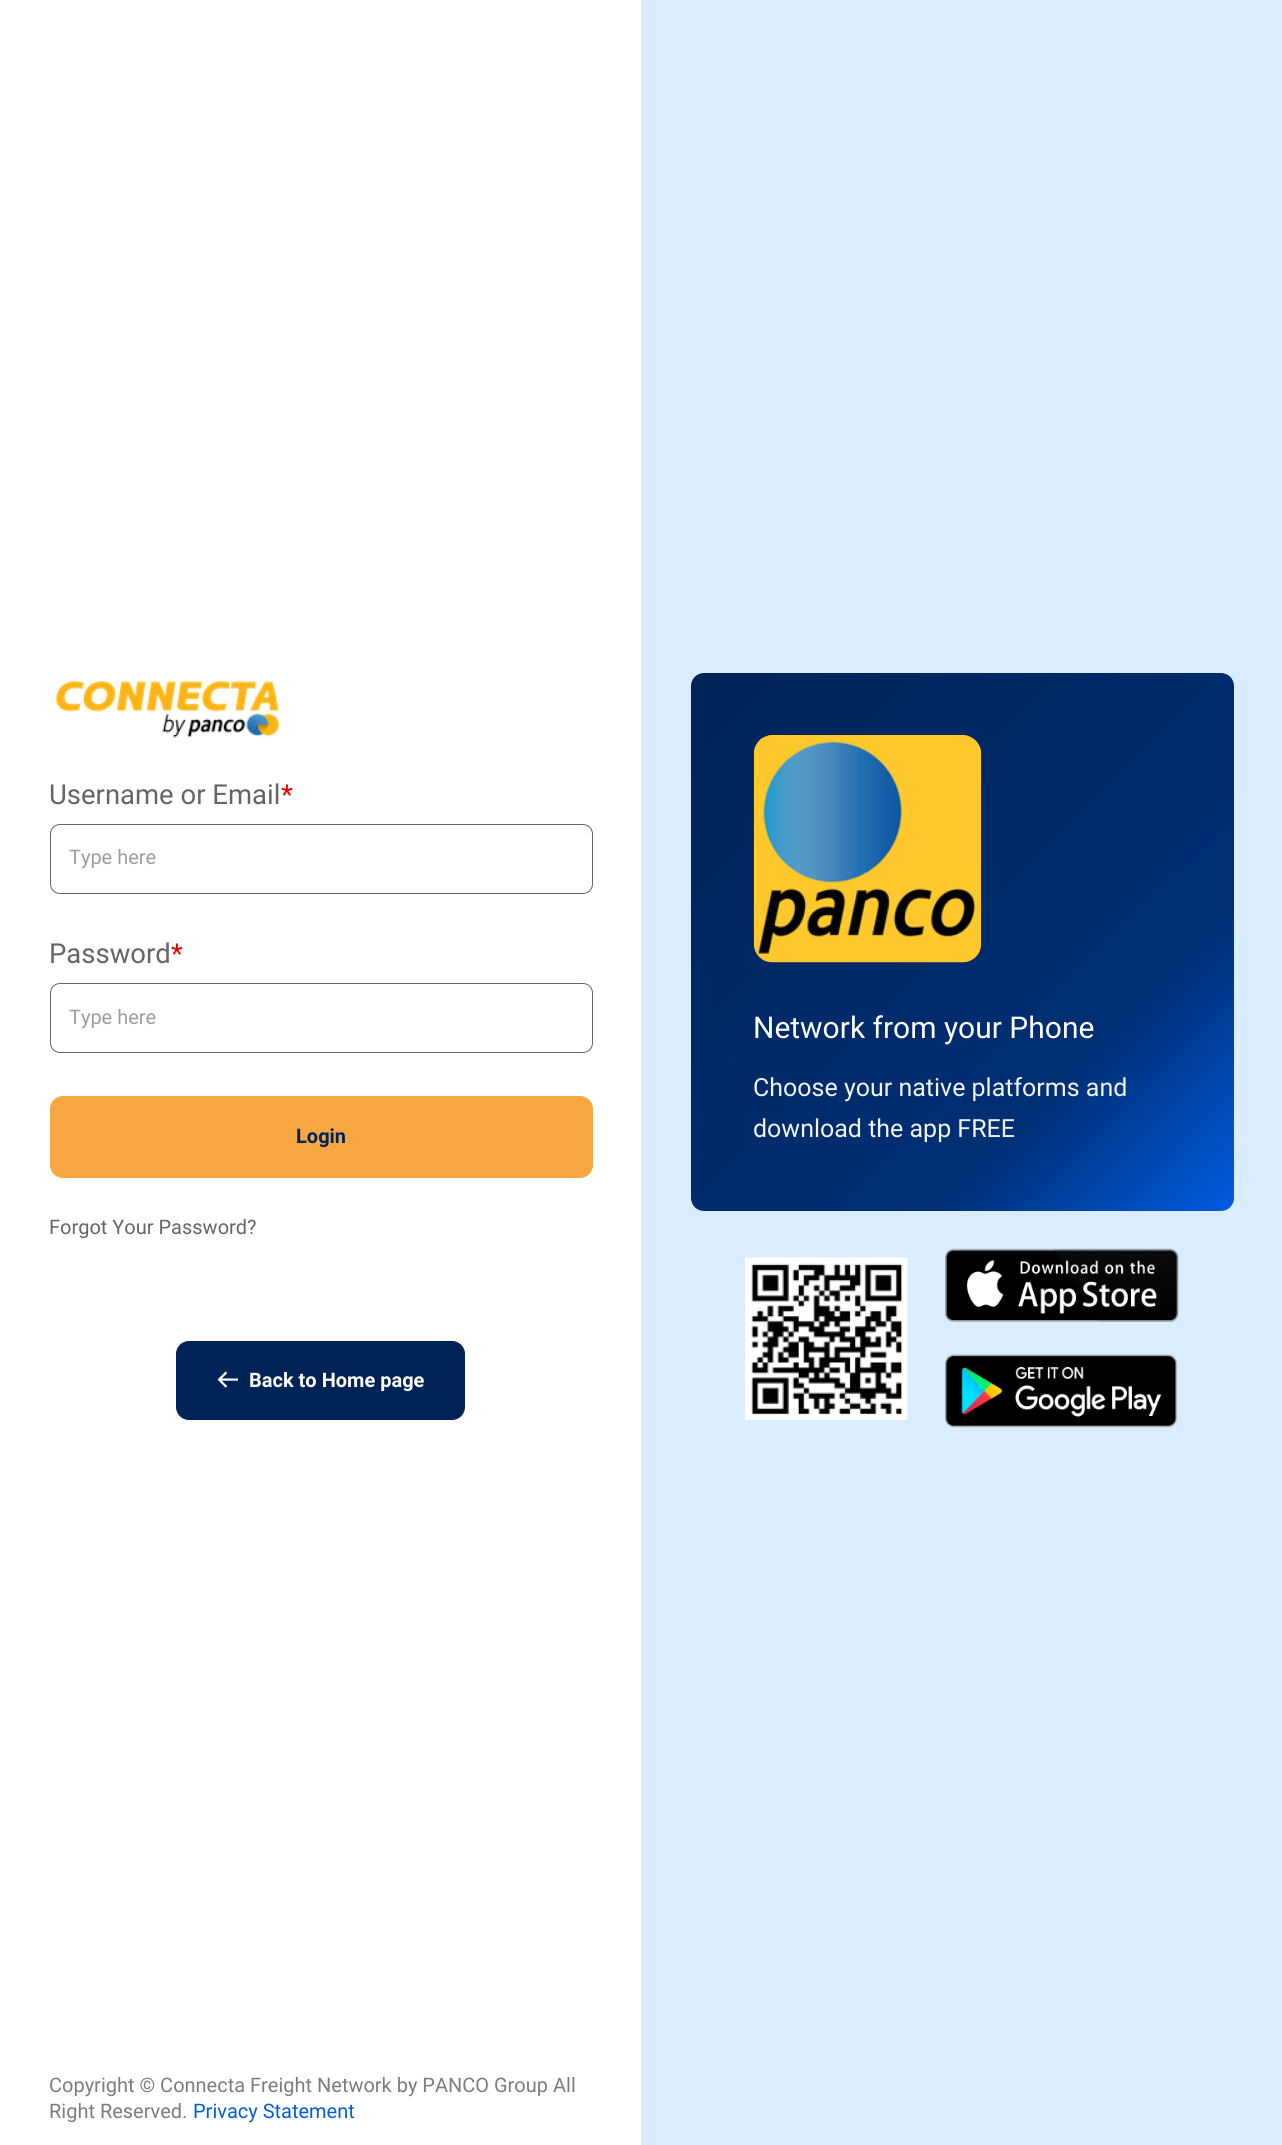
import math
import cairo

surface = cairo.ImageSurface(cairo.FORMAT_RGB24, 1282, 2145)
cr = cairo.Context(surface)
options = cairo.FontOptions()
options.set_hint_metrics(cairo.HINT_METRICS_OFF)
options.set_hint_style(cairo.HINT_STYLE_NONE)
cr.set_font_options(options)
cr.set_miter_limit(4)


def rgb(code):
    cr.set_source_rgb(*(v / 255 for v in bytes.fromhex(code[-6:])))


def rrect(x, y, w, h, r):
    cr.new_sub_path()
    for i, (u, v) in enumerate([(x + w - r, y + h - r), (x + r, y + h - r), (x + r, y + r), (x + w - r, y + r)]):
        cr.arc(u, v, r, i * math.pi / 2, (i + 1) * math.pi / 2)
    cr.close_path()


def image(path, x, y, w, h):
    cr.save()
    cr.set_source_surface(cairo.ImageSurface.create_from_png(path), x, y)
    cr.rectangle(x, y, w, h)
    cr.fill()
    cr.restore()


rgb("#ffffff")
cr.paint()
image("img/1.png", 56, 681, 223, 57)
rrect(50.5, 824.5, 542, 69, 9.5)
rgb("#656565")
cr.set_line_width(1)
cr.stroke()
rrect(50.5, 983.5, 542, 69, 9.5)
cr.stroke()
rgb("#f7a742")
rrect(50.5, 1096.5, 542, 81, 12.5)
cr.fill_preserve()
cr.stroke()
rgb("#002357")
rrect(176.5, 1341.5, 288, 78, 12.5)
cr.fill_preserve()
cr.stroke()
image("img/2.png", 218, 1371, 20, 17)
rgb("#daedff")
cr.rectangle(641, 0, 641, 2145)
cr.fill()
gradient = cairo.LinearGradient(693, 671, 1232, 1213)
gradient.add_color_stop_rgba(0, 0, 0.137, 0.341, 1)
gradient.add_color_stop_rgba(0.72, 0, 0.184, 0.459, 1)
gradient.add_color_stop_rgba(1, 0, 0.361, 0.886, 1)
cr.set_source(gradient)
rrect(691, 673, 543, 538, 13)
cr.fill()
image("img/3.png", 753, 735, 229, 228)
image("img/4.png", 745, 1257, 163, 163)
image("img/5.png", 945, 1248, 234, 74)
image("img/6.png", 945, 1354, 233, 74)
cr.select_font_face("Roboto")
cr.set_font_size(27.5)
rgb("#656565")
cr.move_to(49, 804)
cr.show_text("Username or Email")
rgb("#ef0000")
cr.move_to(281, 804)
cr.show_text("*")
cr.set_font_size(20)
rgb("#9d9d9d")
cr.move_to(69, 864)
cr.show_text("Type here")
cr.set_font_size(27.5)
rgb("#656565")
cr.move_to(49, 963)
cr.show_text("Password")
rgb("#ef0000")
cr.move_to(171, 963)
cr.show_text("*")
cr.set_font_size(20)
rgb("#9d9d9d")
cr.move_to(69, 1024)
cr.show_text("Type here")
cr.select_font_face("Roboto", cairo.FONT_SLANT_NORMAL, cairo.FONT_WEIGHT_BOLD)
rgb("#002357")
cr.move_to(296, 1143)
cr.show_text("Login")
cr.select_font_face("Roboto")
rgb("#656565")
cr.move_to(49, 1234)
cr.show_text("Forgot Your Password?")
cr.select_font_face("Roboto", cairo.FONT_SLANT_NORMAL, cairo.FONT_WEIGHT_BOLD)
rgb("#ffffff")
cr.move_to(249, 1387)
cr.show_text("Back to Home page")
cr.select_font_face("Roboto")
rgb("#7c7c7c")
cr.move_to(49, 2092)
cr.show_text("Copyright © Connecta Freight Network by PANCO Group All")
cr.move_to(49, 2118)
cr.show_text("Right Reserved.")
rgb("#005ce2")
cr.move_to(193, 2118)
cr.show_text("Privacy Statement")
cr.set_font_size(30)
rgb("#ffffff")
cr.move_to(753, 1038)
cr.show_text("Network from your Phone")
cr.set_font_size(25)
rgb("#f3f3f3")
cr.move_to(753, 1096)
cr.show_text("Choose your native platforms and")
cr.move_to(753, 1137)
cr.show_text("download the app FREE")
surface.write_to_png("page.png")
